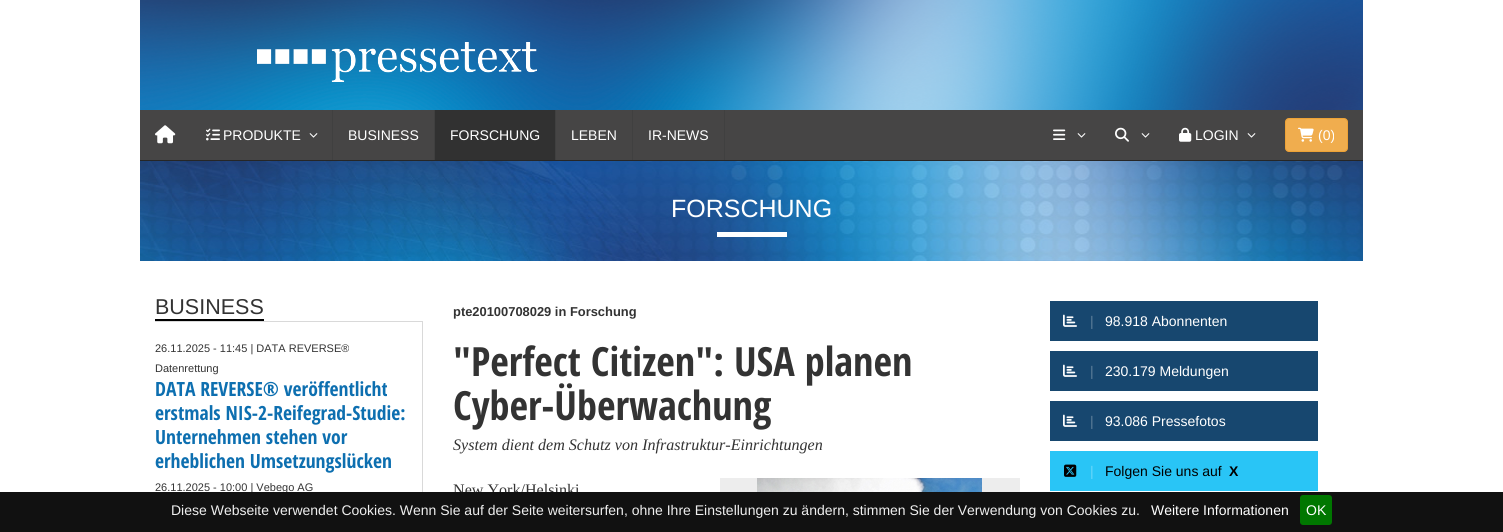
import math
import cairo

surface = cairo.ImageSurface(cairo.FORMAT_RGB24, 1503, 532)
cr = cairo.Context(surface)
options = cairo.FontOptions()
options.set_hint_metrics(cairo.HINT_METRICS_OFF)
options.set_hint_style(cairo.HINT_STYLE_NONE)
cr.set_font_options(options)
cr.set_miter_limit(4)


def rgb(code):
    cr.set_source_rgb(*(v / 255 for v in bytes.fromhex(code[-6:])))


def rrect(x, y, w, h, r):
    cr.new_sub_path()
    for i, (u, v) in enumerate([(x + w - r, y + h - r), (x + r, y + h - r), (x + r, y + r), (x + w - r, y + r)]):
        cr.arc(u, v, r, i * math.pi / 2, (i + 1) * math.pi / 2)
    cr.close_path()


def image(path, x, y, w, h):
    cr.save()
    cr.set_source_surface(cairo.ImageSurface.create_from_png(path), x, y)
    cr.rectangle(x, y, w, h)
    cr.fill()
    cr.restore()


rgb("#ffffff")
cr.paint()
image("img/1.png", 140, 0, 1223, 110)
image("img/2.png", 257, 42, 280, 40)
rgb("#464545")
cr.rectangle(140, 110, 1223, 50)
cr.fill()
rgb("#262626")
cr.rectangle(140, 160, 1223, 1)
cr.fill()
image("img/3.png", 155, 125, 21, 19)
image("img/4.png", 206, 128, 14, 13)
image("img/5.png", 309, 133, 9, 5)
for x, y, w, h, color in [
    (332, 110, 1, 50, "#404040"),
    (434, 110, 1, 50, "#404040"),
    (435, 110, 120, 50, "#313131"),
    (555, 110, 1, 50, "#404040"),
    (632, 110, 1, 50, "#404040"),
    (724, 110, 1, 50, "#404040"),
]:
    rgb(color)
    cr.rectangle(x, y, w, h)
    cr.fill()
image("img/6.png", 1053, 129, 13, 11)
image("img/5.png", 1077, 133, 9, 5)
image("img/7.png", 1115, 127, 14, 15)
image("img/5.png", 1141, 133, 9, 5)
image("img/8.png", 1179, 127, 13, 15)
image("img/5.png", 1247, 133, 9, 5)
rgb("#f0ad4e")
rrect(1285.5, 118.5, 62, 33, 3.5)
cr.fill_preserve()
rgb("#eea236")
cr.set_line_width(1)
cr.stroke()
image("img/9.png", 1298, 127, 16, 15)
image("img/10.png", 140, 161, 1223, 100)
for x, y, w, h, color in [
    (717, 232, 70, 5, "#ffffff"),
    (155, 321, 268, 1, "#d9d9d9"),
    (155, 319, 109, 2, "#000000"),
    (422, 322, 1, 170, "#d9d9d9"),
    (720, 478, 300, 14, "#ededed"),
]:
    rgb(color)
    cr.rectangle(x, y, w, h)
    cr.fill()
image("img/11.png", 757, 478, 225, 14)
rgb("#17476f")
cr.rectangle(1050, 301, 268, 40)
cr.fill()
image("img/12.png", 1063, 314, 14, 13)
cr.rectangle(1050, 351, 268, 40)
cr.fill()
image("img/12.png", 1063, 364, 14, 13)
cr.rectangle(1050, 401, 268, 40)
cr.fill()
image("img/12.png", 1063, 414, 14, 13)
rgb("#29c5f6")
cr.rectangle(1050, 451, 268, 40)
cr.fill()
image("img/13.png", 1064, 464, 13, 13)
cr.select_font_face("Liberation Sans")
cr.set_font_size(14)
rgb("#ffffff")
for x, y, s in [
    (223, 140, "PRODUKTE"),
    (348, 140, "BUSINESS"),
    (450, 140, "FORSCHUNG"),
    (571, 140, "LEBEN"),
    (648, 140, "IR-NEWS"),
    (1195, 140, "LOGIN"),
    (1318, 140, "(0)"),
]:
    cr.move_to(x, y)
    cr.show_text(s)
cr.set_font_size(25)
cr.move_to(671, 217)
cr.show_text("FORSCHUNG")
cr.set_font_size(21.5)
rgb("#333333")
cr.move_to(155, 314)
cr.show_text("BUSINESS")
cr.set_font_size(11)
cr.move_to(155, 352)
cr.show_text("26.11.2025 - 11:45 | DATA REVERSE®")
cr.move_to(155, 372)
cr.show_text("Datenrettung")
cr.select_font_face("Open Sans Condensed", cairo.FONT_SLANT_NORMAL, cairo.FONT_WEIGHT_BOLD)
cr.set_font_size(19.6)
rgb("#0d6fb0")
for x, y, s in [
    (155, 396, "DATA REVERSE® veröffentlicht"),
    (155, 420, "erstmals NIS-2-Reifegrad-Studie:"),
    (155, 444, "Unternehmen stehen vor"),
    (155, 468, "erheblichen Umsetzungslücken"),
]:
    cr.move_to(x, y)
    cr.show_text(s)
cr.select_font_face("Liberation Sans")
cr.set_font_size(11)
rgb("#333333")
cr.move_to(155, 491)
cr.show_text("26.11.2025 - 10:00 | Vebego AG")
cr.select_font_face("Liberation Sans", cairo.FONT_SLANT_NORMAL, cairo.FONT_WEIGHT_BOLD)
cr.set_font_size(12.9)
cr.move_to(453, 316)
cr.show_text("pte20100708029 in Forschung")
cr.select_font_face("Open Sans Condensed", cairo.FONT_SLANT_NORMAL, cairo.FONT_WEIGHT_BOLD)
cr.set_font_size(40.25)
cr.move_to(453, 376)
cr.show_text("\"Perfect Citizen\": USA planen")
cr.move_to(453, 420)
cr.show_text("Cyber-Überwachung")
cr.select_font_face("Liberation Serif", cairo.FONT_SLANT_ITALIC)
cr.set_font_size(16.1)
cr.move_to(453, 450)
cr.show_text("System dient dem Schutz von Infrastruktur-Einrichtungen")
cr.select_font_face("Liberation Serif")
cr.move_to(453, 495)
cr.show_text("New York/Helsinki")
cr.select_font_face("Liberation Sans")
cr.set_font_size(14)
rgb("#5d7e9a")
cr.move_to(1090, 326)
cr.show_text("|")
rgb("#ffffff")
cr.move_to(1105, 326)
cr.show_text("98.918 Abonnenten")
rgb("#5d7e9a")
cr.move_to(1090, 376)
cr.show_text("|")
rgb("#ffffff")
cr.move_to(1105, 376)
cr.show_text("230.179 Meldungen")
rgb("#5d7e9a")
cr.move_to(1090, 426)
cr.show_text("|")
rgb("#ffffff")
cr.move_to(1105, 426)
cr.show_text("93.086 Pressefotos")
rgb("#69d6f9")
cr.move_to(1090, 476)
cr.show_text("|")
rgb("#000000")
cr.move_to(1105, 476)
cr.show_text("Folgen Sie uns auf")
cr.select_font_face("Liberation Sans", cairo.FONT_SLANT_NORMAL, cairo.FONT_WEIGHT_BOLD)
cr.move_to(1229, 476)
cr.show_text("X")
rgb("#111111")
cr.rectangle(0, 492, 1503, 40)
cr.fill()
cr.select_font_face("Liberation Sans")
rgb("#eeeeee")
cr.move_to(171, 515)
cr.show_text("Diese Webseite verwendet Cookies. Wenn Sie auf der Seite weitersurfen, ohne Ihre Einstellungen zu ändern, stimmen Sie der Verwendung von Cookies zu.")
rgb("#ffffff")
cr.move_to(1151, 515)
cr.show_text("Weitere Informationen")
rgb("#007700")
rrect(1300, 495, 32, 30, 3)
cr.fill()
rgb("#ffffff")
cr.move_to(1306, 515)
cr.show_text("OK")
surface.write_to_png("page.png")
